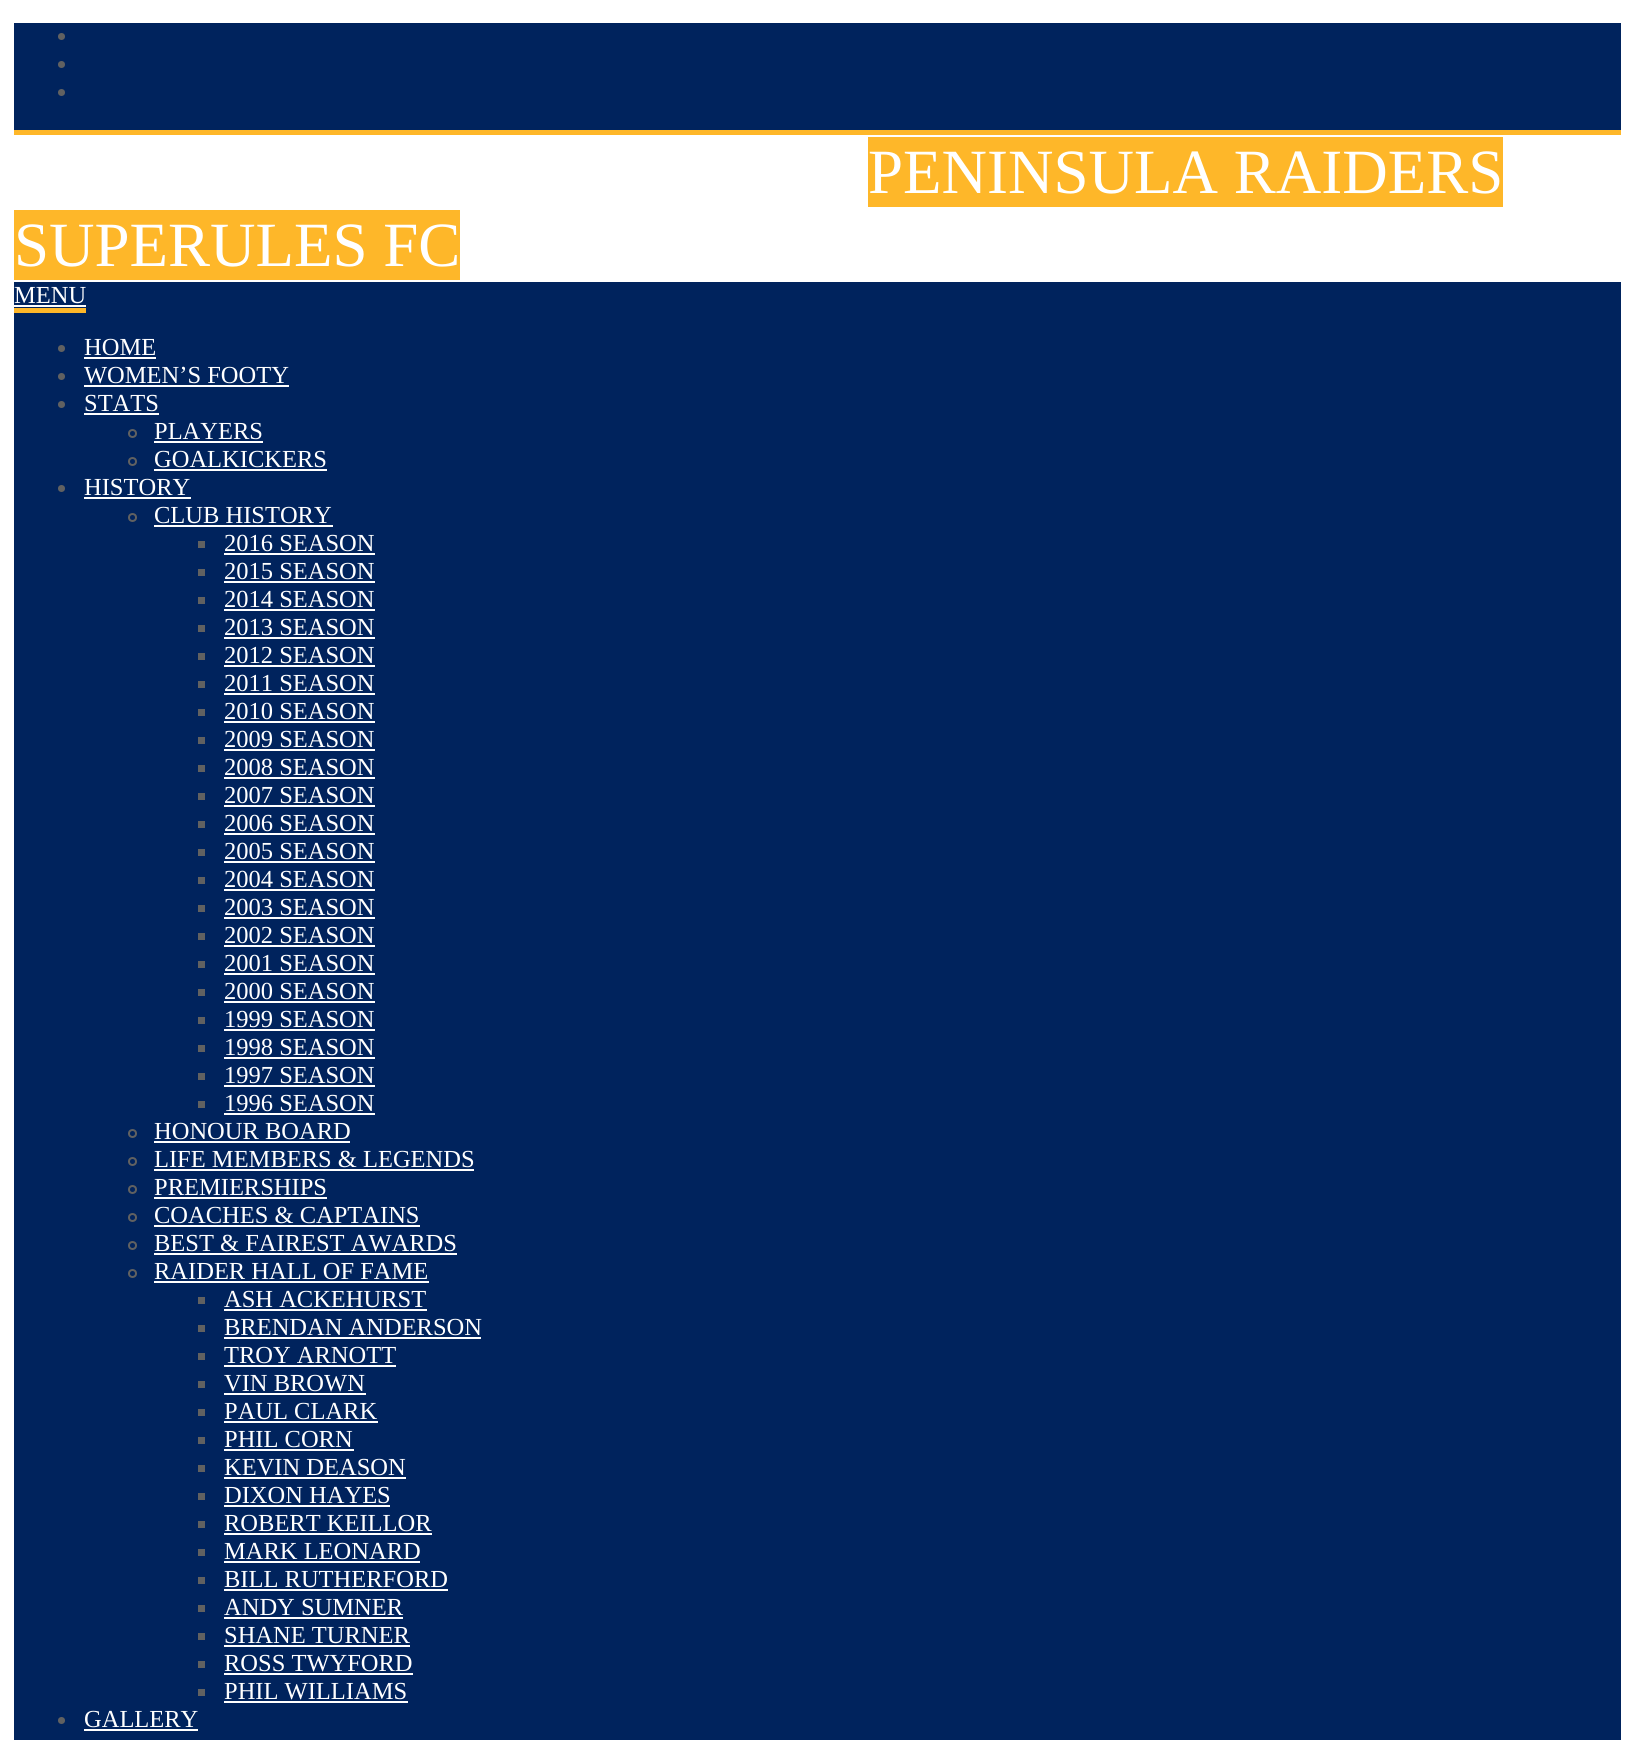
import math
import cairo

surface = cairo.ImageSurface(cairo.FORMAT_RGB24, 1633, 1740)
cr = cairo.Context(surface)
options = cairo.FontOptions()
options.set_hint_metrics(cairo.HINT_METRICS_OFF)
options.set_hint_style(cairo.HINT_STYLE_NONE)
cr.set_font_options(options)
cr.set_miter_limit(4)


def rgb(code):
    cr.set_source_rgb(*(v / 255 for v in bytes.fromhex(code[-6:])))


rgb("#ffffff")
cr.paint()
rgb("#00235d")
cr.rectangle(14, 23, 1607, 107)
cr.fill()
rgb("#feb729")
cr.rectangle(14, 130, 1607, 5)
cr.fill()
rgb("#616161")
cr.arc(61.5, 36.5, 3.5, 0, 2 * math.pi)
cr.fill()
cr.arc(61.5, 64.5, 3.5, 0, 2 * math.pi)
cr.fill()
cr.arc(61.5, 92.5, 3.5, 0, 2 * math.pi)
cr.fill()
for x, y, w, h, color in [
    (868, 137, 635, 70, "#feb729"),
    (14, 210, 446, 70, "#feb729"),
    (14, 282, 1607, 1458, "#00235d"),
    (14, 308, 72, 5, "#feb729"),
    (14, 305, 72, 2, "#ffffff"),
]:
    rgb(color)
    cr.rectangle(x, y, w, h)
    cr.fill()
rgb("#616161")
cr.arc(61.5, 348.5, 3.5, 0, 2 * math.pi)
cr.fill()
rgb("#ffffff")
cr.rectangle(84, 357, 72, 2)
cr.fill()
rgb("#616161")
cr.arc(61.5, 376.5, 3.5, 0, 2 * math.pi)
cr.fill()
rgb("#ffffff")
cr.rectangle(84, 385, 205, 2)
cr.fill()
rgb("#616161")
cr.arc(61.5, 404.5, 3.5, 0, 2 * math.pi)
cr.fill()
rgb("#ffffff")
cr.rectangle(84, 413, 75, 2)
cr.fill()
cr.arc(132.5, 433.5, 3.5, 0, 2 * math.pi)
rgb("#616161")
cr.stroke()
rgb("#ffffff")
cr.rectangle(154, 441, 109, 2)
cr.fill()
cr.arc(132.5, 461.5, 3.5, 0, 2 * math.pi)
rgb("#616161")
cr.stroke()
rgb("#ffffff")
cr.rectangle(154, 469, 173, 2)
cr.fill()
rgb("#616161")
cr.arc(61.5, 488.5, 3.5, 0, 2 * math.pi)
cr.fill()
rgb("#ffffff")
cr.rectangle(84, 497, 107, 2)
cr.fill()
cr.arc(132.5, 517.5, 3.5, 0, 2 * math.pi)
rgb("#616161")
cr.stroke()
for x, y, w, h, color in [
    (154, 525, 179, 2, "#ffffff"),
    (198, 541, 7, 7, "#616161"),
    (224, 553, 151, 2, "#ffffff"),
    (198, 569, 7, 7, "#616161"),
    (224, 581, 151, 2, "#ffffff"),
    (198, 597, 7, 7, "#616161"),
    (224, 609, 151, 2, "#ffffff"),
    (198, 625, 7, 7, "#616161"),
    (224, 637, 151, 2, "#ffffff"),
    (198, 653, 7, 7, "#616161"),
    (224, 665, 151, 2, "#ffffff"),
    (198, 681, 7, 7, "#616161"),
    (224, 693, 151, 2, "#ffffff"),
    (198, 709, 7, 7, "#616161"),
    (224, 721, 151, 2, "#ffffff"),
    (198, 737, 7, 7, "#616161"),
    (224, 749, 151, 2, "#ffffff"),
    (198, 765, 7, 7, "#616161"),
    (224, 777, 151, 2, "#ffffff"),
    (198, 793, 7, 7, "#616161"),
    (224, 805, 151, 2, "#ffffff"),
    (198, 821, 7, 7, "#616161"),
    (224, 833, 151, 2, "#ffffff"),
    (198, 849, 7, 7, "#616161"),
    (224, 861, 151, 2, "#ffffff"),
    (198, 877, 7, 7, "#616161"),
    (224, 889, 151, 2, "#ffffff"),
    (198, 905, 7, 7, "#616161"),
    (224, 917, 151, 2, "#ffffff"),
    (198, 933, 7, 7, "#616161"),
    (224, 945, 151, 2, "#ffffff"),
    (198, 961, 7, 7, "#616161"),
    (224, 973, 151, 2, "#ffffff"),
    (198, 989, 7, 7, "#616161"),
    (224, 1001, 151, 2, "#ffffff"),
    (198, 1017, 7, 7, "#616161"),
    (224, 1029, 151, 2, "#ffffff"),
    (198, 1045, 7, 7, "#616161"),
    (224, 1057, 151, 2, "#ffffff"),
    (198, 1073, 7, 7, "#616161"),
    (224, 1085, 151, 2, "#ffffff"),
    (198, 1101, 7, 7, "#616161"),
    (224, 1113, 151, 2, "#ffffff"),
]:
    rgb(color)
    cr.rectangle(x, y, w, h)
    cr.fill()
cr.arc(132.5, 1133.5, 3.5, 0, 2 * math.pi)
rgb("#616161")
cr.stroke()
rgb("#ffffff")
cr.rectangle(154, 1141, 196, 2)
cr.fill()
cr.arc(132.5, 1161.5, 3.5, 0, 2 * math.pi)
rgb("#616161")
cr.stroke()
rgb("#ffffff")
cr.rectangle(154, 1169, 320, 2)
cr.fill()
cr.arc(132.5, 1189.5, 3.5, 0, 2 * math.pi)
rgb("#616161")
cr.stroke()
rgb("#ffffff")
cr.rectangle(154, 1197, 173, 2)
cr.fill()
cr.arc(132.5, 1217.5, 3.5, 0, 2 * math.pi)
rgb("#616161")
cr.stroke()
rgb("#ffffff")
cr.rectangle(154, 1225, 266, 2)
cr.fill()
cr.arc(132.5, 1245.5, 3.5, 0, 2 * math.pi)
rgb("#616161")
cr.stroke()
rgb("#ffffff")
cr.rectangle(154, 1253, 303, 2)
cr.fill()
cr.arc(132.5, 1273.5, 3.5, 0, 2 * math.pi)
rgb("#616161")
cr.stroke()
for x, y, w, h, color in [
    (154, 1281, 275, 2, "#ffffff"),
    (198, 1297, 7, 7, "#616161"),
    (224, 1309, 203, 2, "#ffffff"),
    (198, 1325, 7, 7, "#616161"),
    (224, 1337, 257, 2, "#ffffff"),
    (198, 1353, 7, 7, "#616161"),
    (224, 1365, 172, 2, "#ffffff"),
    (198, 1381, 7, 7, "#616161"),
    (224, 1393, 142, 2, "#ffffff"),
    (198, 1409, 7, 7, "#616161"),
    (224, 1421, 154, 2, "#ffffff"),
    (198, 1437, 7, 7, "#616161"),
    (224, 1449, 130, 2, "#ffffff"),
    (198, 1465, 7, 7, "#616161"),
    (224, 1477, 182, 2, "#ffffff"),
    (198, 1493, 7, 7, "#616161"),
    (224, 1505, 166, 2, "#ffffff"),
    (198, 1521, 7, 7, "#616161"),
    (224, 1533, 208, 2, "#ffffff"),
    (198, 1549, 7, 7, "#616161"),
    (224, 1561, 196, 2, "#ffffff"),
    (198, 1577, 7, 7, "#616161"),
    (224, 1589, 224, 2, "#ffffff"),
    (198, 1605, 7, 7, "#616161"),
    (224, 1617, 179, 2, "#ffffff"),
    (198, 1633, 7, 7, "#616161"),
    (224, 1645, 186, 2, "#ffffff"),
    (198, 1661, 7, 7, "#616161"),
    (224, 1673, 189, 2, "#ffffff"),
    (198, 1689, 7, 7, "#616161"),
    (224, 1701, 184, 2, "#ffffff"),
]:
    rgb(color)
    cr.rectangle(x, y, w, h)
    cr.fill()
rgb("#616161")
cr.arc(61.5, 1720.5, 3.5, 0, 2 * math.pi)
cr.fill()
rgb("#ffffff")
cr.rectangle(84, 1729, 114, 2)
cr.fill()
cr.select_font_face("Liberation Serif")
cr.set_font_size(63)
cr.move_to(868, 193)
cr.show_text("PENINSULA RAIDERS")
cr.move_to(14, 266)
cr.show_text("SUPERULES FC")
cr.set_font_size(24.5)
for x, y, s in [
    (14, 303, "MENU"),
    (84, 355, "HOME"),
    (84, 383, "WOMEN’S FOOTY"),
    (84, 411, "STATS"),
    (154, 439, "PLAYERS"),
    (154, 467, "GOALKICKERS"),
    (84, 495, "HISTORY"),
    (154, 523, "CLUB HISTORY"),
    (224, 551, "2016 SEASON"),
    (224, 579, "2015 SEASON"),
    (224, 607, "2014 SEASON"),
    (224, 635, "2013 SEASON"),
    (224, 663, "2012 SEASON"),
    (224, 691, "2011 SEASON"),
    (224, 719, "2010 SEASON"),
    (224, 747, "2009 SEASON"),
    (224, 775, "2008 SEASON"),
    (224, 803, "2007 SEASON"),
    (224, 831, "2006 SEASON"),
    (224, 859, "2005 SEASON"),
    (224, 887, "2004 SEASON"),
    (224, 915, "2003 SEASON"),
    (224, 943, "2002 SEASON"),
    (224, 971, "2001 SEASON"),
    (224, 999, "2000 SEASON"),
    (224, 1027, "1999 SEASON"),
    (224, 1055, "1998 SEASON"),
    (224, 1083, "1997 SEASON"),
    (224, 1111, "1996 SEASON"),
    (154, 1139, "HONOUR BOARD"),
    (154, 1167, "LIFE MEMBERS & LEGENDS"),
    (154, 1195, "PREMIERSHIPS"),
    (154, 1223, "COACHES & CAPTAINS"),
    (154, 1251, "BEST & FAIREST AWARDS"),
    (154, 1279, "RAIDER HALL OF FAME"),
    (224, 1307, "ASH ACKEHURST"),
    (224, 1335, "BRENDAN ANDERSON"),
    (224, 1363, "TROY ARNOTT"),
    (224, 1391, "VIN BROWN"),
    (224, 1419, "PAUL CLARK"),
    (224, 1447, "PHIL CORN"),
    (224, 1475, "KEVIN DEASON"),
    (224, 1503, "DIXON HAYES"),
    (224, 1531, "ROBERT KEILLOR"),
    (224, 1559, "MARK LEONARD"),
    (224, 1587, "BILL RUTHERFORD"),
    (224, 1615, "ANDY SUMNER"),
    (224, 1643, "SHANE TURNER"),
    (224, 1671, "ROSS TWYFORD"),
    (224, 1699, "PHIL WILLIAMS"),
    (84, 1727, "GALLERY"),
]:
    cr.move_to(x, y)
    cr.show_text(s)
surface.write_to_png("page.png")
